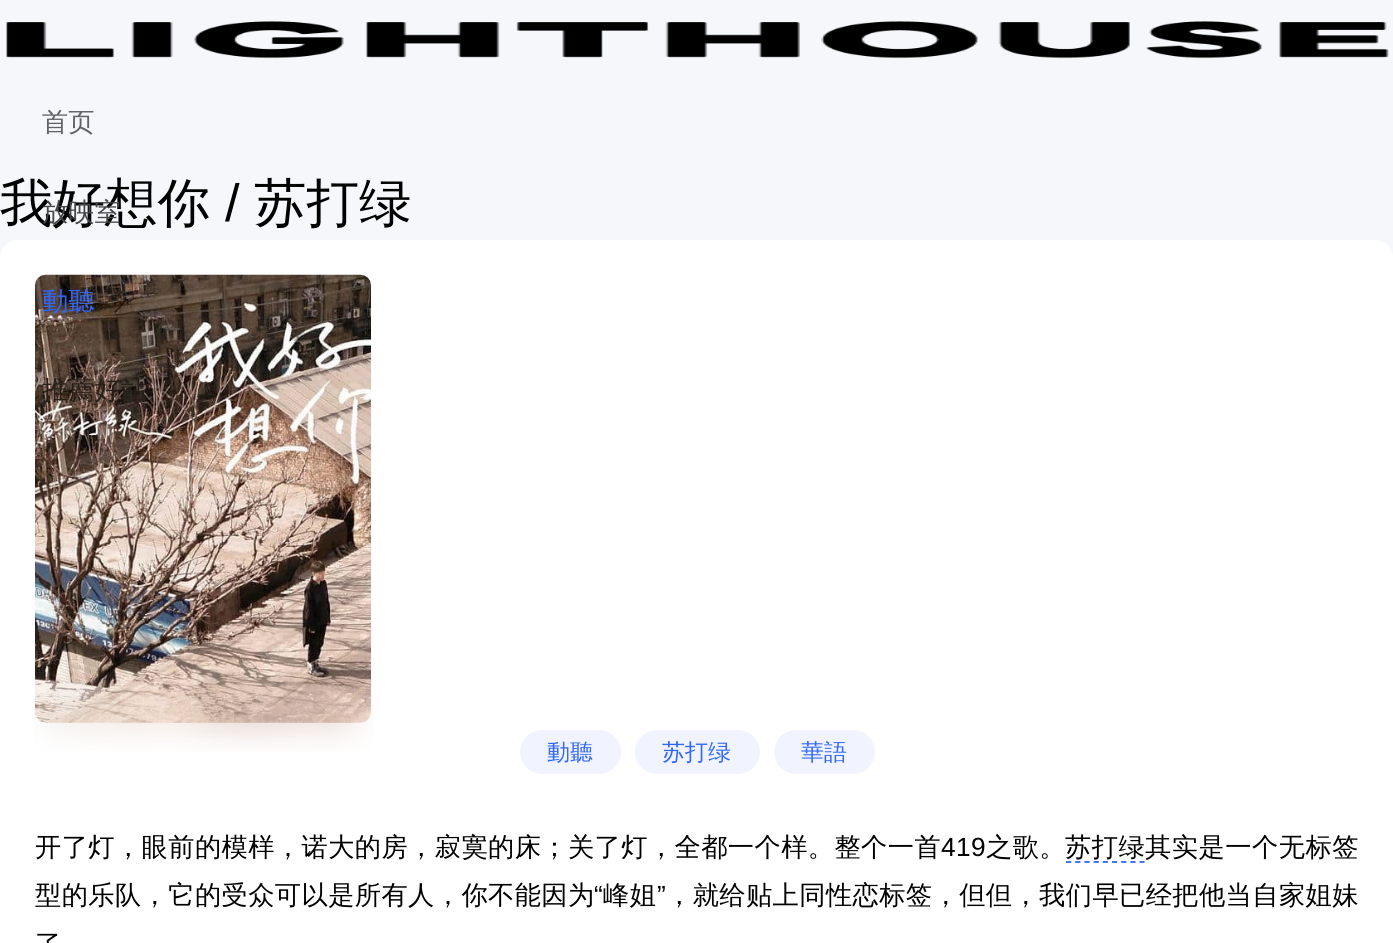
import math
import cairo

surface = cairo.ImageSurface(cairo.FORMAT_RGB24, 1393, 943)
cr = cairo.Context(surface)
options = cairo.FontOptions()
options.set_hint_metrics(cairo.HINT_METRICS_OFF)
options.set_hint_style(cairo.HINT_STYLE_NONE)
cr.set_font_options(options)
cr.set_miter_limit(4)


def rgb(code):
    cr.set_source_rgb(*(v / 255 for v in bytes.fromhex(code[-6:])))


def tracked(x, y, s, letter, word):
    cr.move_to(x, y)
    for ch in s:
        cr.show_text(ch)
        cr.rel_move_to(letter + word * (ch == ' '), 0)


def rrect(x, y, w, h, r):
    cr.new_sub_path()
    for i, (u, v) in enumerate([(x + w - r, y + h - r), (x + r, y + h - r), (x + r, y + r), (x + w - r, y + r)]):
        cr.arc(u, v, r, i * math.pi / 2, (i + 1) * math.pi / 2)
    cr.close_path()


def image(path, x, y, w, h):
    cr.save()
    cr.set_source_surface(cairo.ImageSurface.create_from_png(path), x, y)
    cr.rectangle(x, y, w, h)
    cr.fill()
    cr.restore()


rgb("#f5f7fa")
cr.paint()
image("img/1.png", 6, 21, 1383, 38)
rgb("#ffffff")
rrect(0, 240, 1393, 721, 18)
cr.fill()
image("img/2.png", 34, 274, 338, 449)
image("img/3.png", 34, 672, 340, 80)
rgb("#f1f4ff")
rrect(520, 730, 101, 44, 22)
cr.fill()
rrect(635, 730, 125, 44, 22)
cr.fill()
rrect(774, 730, 101, 44, 22)
cr.fill()
cr.new_path()
cr.move_to(1066, 862)
cr.line_to(1144.5, 862)
rgb("#2f66ff")
cr.set_line_width(1.8)
cr.set_dash([5.25, 3.94])
cr.stroke()
cr.select_font_face("WenQuanYi Zen Hei Medium")
cr.set_font_size(26.25)
rgb("#626264")
cr.move_to(42, 131)
cr.show_text("首页")
rgb("#2f66ff")
cr.move_to(42, 310)
cr.show_text("動聽")
rgb("#251e19")
cr.move_to(42, 399)
cr.show_text("推薦好站")
cr.set_font_size(52.5)
rgb("#000000")
cr.move_to(0, 221)
cr.show_text("我好想你")
cr.set_font_size(26.25)
rgb("#464647")
cr.move_to(42, 221)
cr.show_text("放映室")
cr.select_font_face("Liberation Sans")
cr.set_font_size(52.5)
rgb("#000000")
cr.move_to(225, 221)
cr.show_text("/")
cr.select_font_face("WenQuanYi Zen Hei Medium")
cr.move_to(254, 221)
cr.show_text("苏打绿")
cr.set_font_size(23)
rgb("#2f66ff")
for x, y, s in [
    (547, 760, "動聽"),
    (662, 760, "苏打绿"),
    (801, 760, "華語"),
]:
    cr.move_to(x, y)
    cr.show_text(s)
cr.set_font_size(26.25)
rgb("#000000")
tracked(35, 856, "开了灯，眼前的模样，诺大的房，寂寞的床；关了灯，全都一个样。整个一首", 0.4, 0)
cr.select_font_face("Liberation Sans")
tracked(941, 856, "419", 0.4, 0)
cr.select_font_face("WenQuanYi Zen Hei Medium")
tracked(986, 856, "之歌。", 0.4, 0)
tracked(1065, 856, "苏打绿", 0.5, 0)
tracked(1145, 856, "其实是一个无标签", 0.5, 0)
tracked(35, 904, "型的乐队，它的受众可以是所有人，你不能因为", 0.4, 0)
cr.select_font_face("Liberation Sans")
tracked(594, 904, "“", 0.4, 0)
cr.select_font_face("WenQuanYi Zen Hei Medium")
tracked(603, 904, "峰姐", 0.4, 0)
cr.select_font_face("Liberation Sans")
tracked(657, 904, "”", 0.4, 0)
cr.select_font_face("WenQuanYi Zen Hei Medium")
tracked(666, 904, "，就给贴上同性恋标签，但但，我们早已经把他当自家姐妹", 0.4, 0)
cr.move_to(35, 953)
cr.show_text("了")
surface.write_to_png("page.png")
